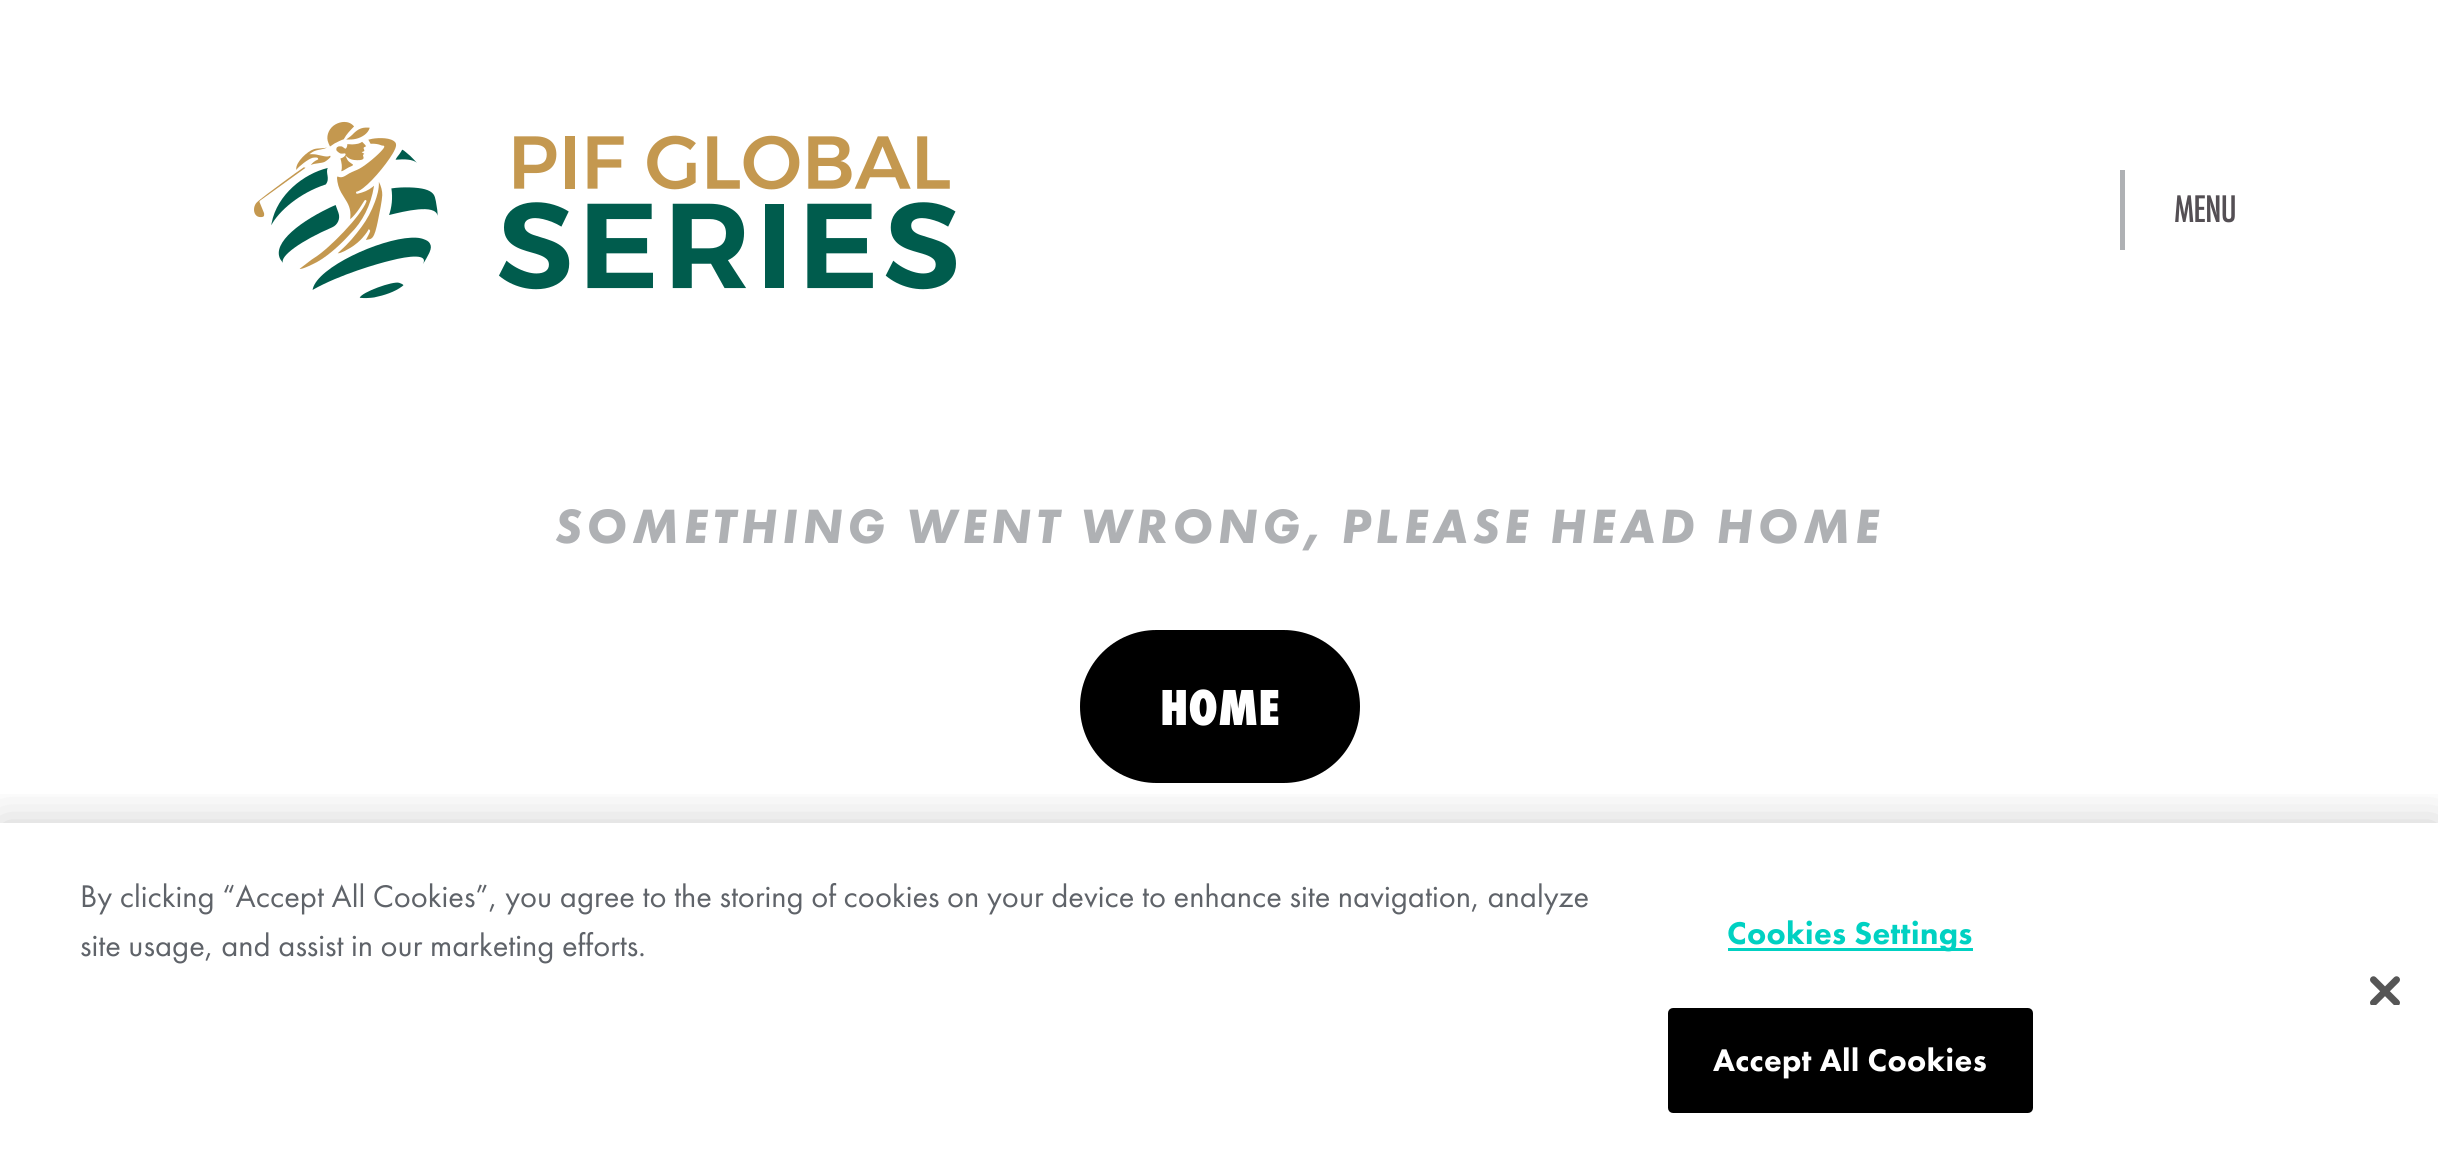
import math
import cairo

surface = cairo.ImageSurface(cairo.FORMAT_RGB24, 2438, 1162)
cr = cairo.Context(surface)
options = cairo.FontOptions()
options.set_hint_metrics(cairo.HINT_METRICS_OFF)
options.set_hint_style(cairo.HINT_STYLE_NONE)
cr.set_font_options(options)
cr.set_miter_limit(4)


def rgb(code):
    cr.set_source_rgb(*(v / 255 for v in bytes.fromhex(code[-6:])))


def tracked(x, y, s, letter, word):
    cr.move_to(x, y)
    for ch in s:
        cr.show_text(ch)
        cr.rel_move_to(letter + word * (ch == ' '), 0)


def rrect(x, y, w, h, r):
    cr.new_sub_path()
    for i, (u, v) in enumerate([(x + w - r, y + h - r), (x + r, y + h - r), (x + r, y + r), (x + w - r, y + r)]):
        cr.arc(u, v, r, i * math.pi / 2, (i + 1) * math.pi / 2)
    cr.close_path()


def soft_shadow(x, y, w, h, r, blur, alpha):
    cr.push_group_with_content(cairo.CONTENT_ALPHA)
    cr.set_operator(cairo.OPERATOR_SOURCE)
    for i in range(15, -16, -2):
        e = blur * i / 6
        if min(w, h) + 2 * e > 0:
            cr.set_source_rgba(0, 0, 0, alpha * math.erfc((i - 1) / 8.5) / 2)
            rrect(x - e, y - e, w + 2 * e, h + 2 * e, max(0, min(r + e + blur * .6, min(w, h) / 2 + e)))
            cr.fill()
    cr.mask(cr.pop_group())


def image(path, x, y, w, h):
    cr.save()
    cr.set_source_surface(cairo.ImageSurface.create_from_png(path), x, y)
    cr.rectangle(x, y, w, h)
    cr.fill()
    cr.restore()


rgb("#ffffff")
cr.paint()
image("img/1.png", 254, 121, 702, 178)
rgb("#afb1b4")
cr.rectangle(2120, 170, 5, 80)
cr.fill()
rgb("#000000")
rrect(1080, 630, 280, 153, 76.5)
cr.fill()
cr.save()
cr.rectangle(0, 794, 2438, 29)
cr.clip()
rgb("#000000")
soft_shadow(0, 823, 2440, 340, 0, 22.5, 0.2)
cr.restore()
rgb("#00d1c2")
cr.rectangle(1728, 948, 245, 3)
cr.fill()
rgb("#000000")
rrect(1669.5, 1009.5, 362, 102, 3.5)
cr.fill_preserve()
cr.set_line_width(3)
cr.stroke()
image("img/2.png", 2370, 976, 30, 29)
cr.select_font_face("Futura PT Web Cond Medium")
cr.set_font_size(40)
rgb("#544f54")
tracked(2174, 222, "MENU", -1, 0)
cr.select_font_face("Futura PT", cairo.FONT_SLANT_ITALIC, cairo.FONT_WEIGHT_BOLD)
cr.set_font_size(50)
rgb("#afb1b4")
tracked(555, 543, "SOMETHING WENT WRONG, PLEASE HEAD HOME", 5, 0)
cr.select_font_face("Futura PT Web Cond ExtraBold")
cr.set_font_size(52.5)
rgb("#ffffff")
cr.move_to(1160, 725)
cr.show_text("HOME")
cr.select_font_face("Futura PT")
cr.set_font_size(32.5)
rgb("#5f6369")
cr.move_to(80, 907)
cr.show_text("By clicking “Accept All Cookies”, you agree to the storing of cookies on your device to enhance site navigation, analyze")
cr.move_to(80, 956)
cr.show_text("site usage, and assist in our marketing efforts.")
cr.select_font_face("Futura PT Black")
rgb("#00d1c2")
tracked(1727, 944, "Cookies Settings", 0.3, 0)
rgb("#ffffff")
tracked(1713, 1071, "Accept All Cookies", 0.3, 0)
surface.write_to_png("page.png")
